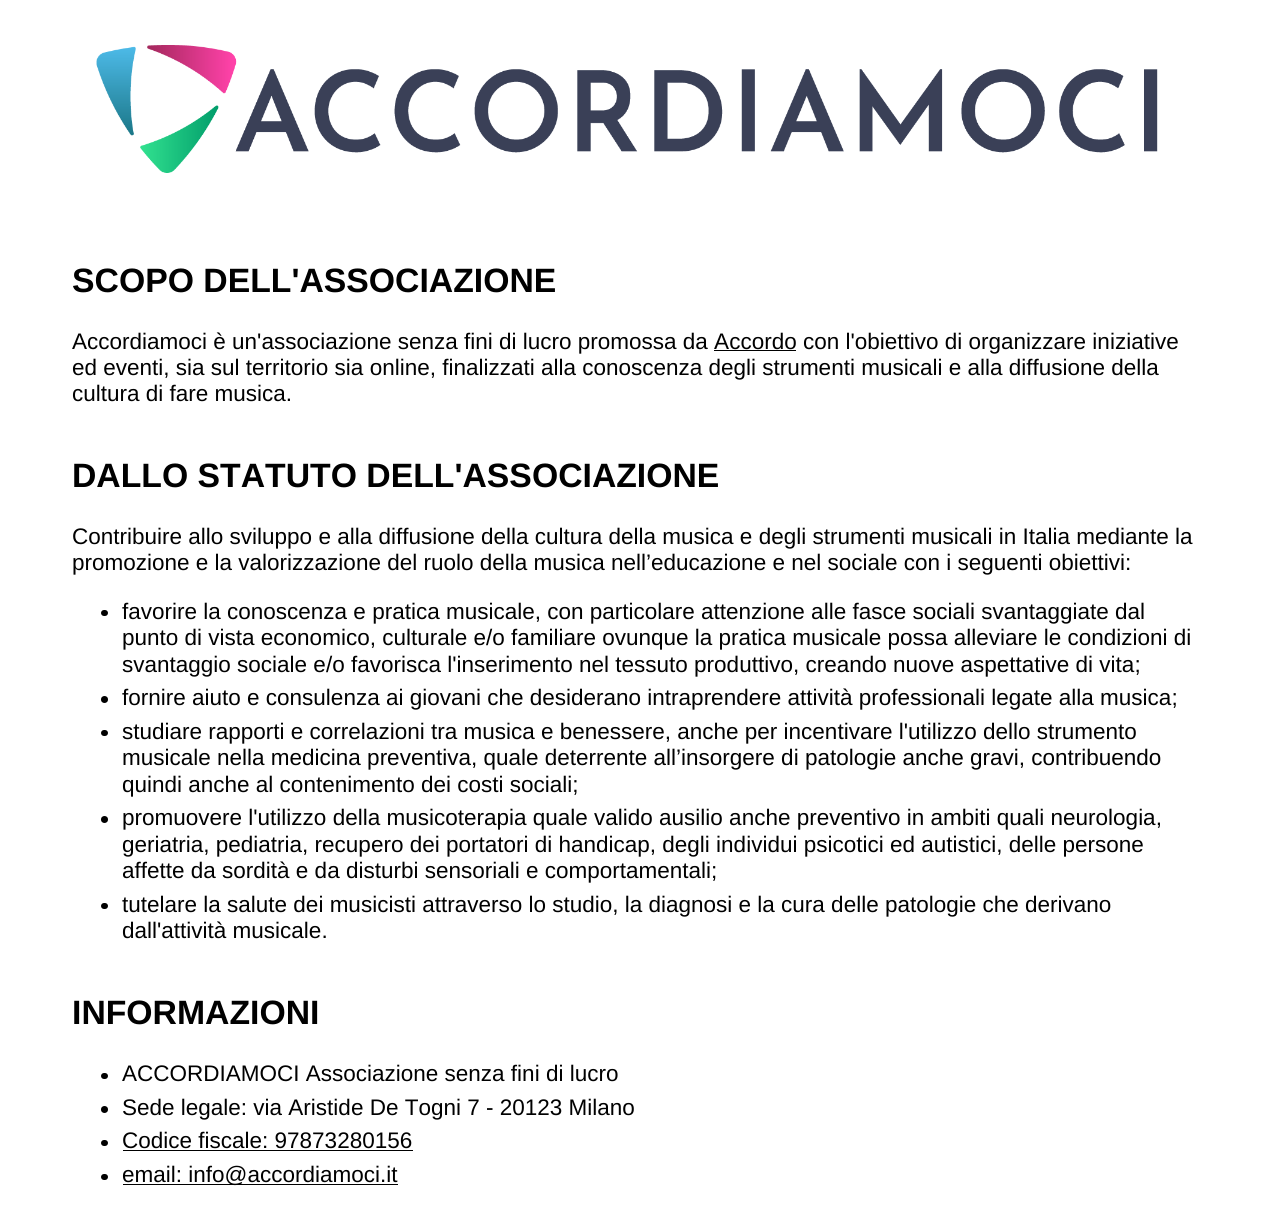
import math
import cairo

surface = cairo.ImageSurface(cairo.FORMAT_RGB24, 1268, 1221)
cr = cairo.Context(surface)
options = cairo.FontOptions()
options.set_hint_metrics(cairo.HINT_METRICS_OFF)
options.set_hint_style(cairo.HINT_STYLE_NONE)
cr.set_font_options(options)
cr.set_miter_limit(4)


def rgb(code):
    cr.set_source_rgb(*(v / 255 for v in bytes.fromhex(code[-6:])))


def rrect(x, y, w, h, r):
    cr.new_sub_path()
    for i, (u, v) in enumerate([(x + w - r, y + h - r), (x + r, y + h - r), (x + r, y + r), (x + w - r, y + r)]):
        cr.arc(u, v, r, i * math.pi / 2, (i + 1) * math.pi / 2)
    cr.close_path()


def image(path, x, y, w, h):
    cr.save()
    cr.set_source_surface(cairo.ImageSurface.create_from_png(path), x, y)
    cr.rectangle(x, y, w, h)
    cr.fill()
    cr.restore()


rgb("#ffffff")
cr.paint()
image("img/1.png", 96, 45, 1062, 128)
rgb("#000000")
cr.rectangle(714, 350, 82, 1)
cr.fill()
rrect(101, 610, 7, 6, 3)
cr.fill()
cr.arc(104.5, 699.5, 3.5, 0, 2 * math.pi)
cr.fill()
rrect(101, 730, 7, 6, 3)
cr.fill()
cr.arc(104.5, 819.5, 3.5, 0, 2 * math.pi)
cr.fill()
rrect(101, 903, 7, 6, 3)
cr.fill()
rrect(101, 1073, 7, 6, 3)
cr.fill()
cr.arc(104.5, 1109.5, 3.5, 0, 2 * math.pi)
cr.fill()
rrect(101, 1140, 7, 6, 3)
cr.fill()
cr.rectangle(123, 1150, 290, 1)
cr.fill()
rrect(101, 1174, 7, 6, 3)
cr.fill()
cr.rectangle(123, 1184, 275, 1)
cr.fill()
cr.select_font_face("Liberation Sans", cairo.FONT_SLANT_NORMAL, cairo.FONT_WEIGHT_BOLD)
cr.set_font_size(33.75)
cr.move_to(72, 292)
cr.show_text("SCOPO DELL'ASSOCIAZIONE")
cr.select_font_face("Liberation Sans")
cr.set_font_size(22.5)
for x, y, s in [
    (72, 349, "Accordiamoci è un'associazione senza fini di lucro promossa da Accordo con l'obiettivo di organizzare iniziative"),
    (72, 375, "ed eventi, sia sul territorio sia online, finalizzati alla conoscenza degli strumenti musicali e alla diffusione della"),
    (72, 401, "cultura di fare musica."),
]:
    cr.move_to(x, y)
    cr.show_text(s)
cr.select_font_face("Liberation Sans", cairo.FONT_SLANT_NORMAL, cairo.FONT_WEIGHT_BOLD)
cr.set_font_size(33.75)
cr.move_to(72, 487)
cr.show_text("DALLO STATUTO DELL'ASSOCIAZIONE")
cr.select_font_face("Liberation Sans")
cr.set_font_size(22.5)
for x, y, s in [
    (72, 544, "Contribuire allo sviluppo e alla diffusione della cultura della musica e degli strumenti musicali in Italia mediante la"),
    (72, 570, "promozione e la valorizzazione del ruolo della musica nell’educazione e nel sociale con i seguenti obiettivi:"),
    (122, 619, "favorire la conoscenza e pratica musicale, con particolare attenzione alle fasce sociali svantaggiate dal"),
    (122, 645, "punto di vista economico, culturale e/o familiare ovunque la pratica musicale possa alleviare le condizioni di"),
    (122, 672, "svantaggio sociale e/o favorisca l'inserimento nel tessuto produttivo, creando nuove aspettative di vita;"),
    (122, 705, "fornire aiuto e consulenza ai giovani che desiderano intraprendere attività professionali legate alla musica;"),
    (122, 739, "studiare rapporti e correlazioni tra musica e benessere, anche per incentivare l'utilizzo dello strumento"),
    (122, 765, "musicale nella medicina preventiva, quale deterrente all’insorgere di patologie anche gravi, contribuendo"),
    (122, 792, "quindi anche al contenimento dei costi sociali;"),
    (122, 825, "promuovere l'utilizzo della musicoterapia quale valido ausilio anche preventivo in ambiti quali neurologia,"),
    (122, 852, "geriatria, pediatria, recupero dei portatori di handicap, degli individui psicotici ed autistici, delle persone"),
    (122, 878, "affette da sordità e da disturbi sensoriali e comportamentali;"),
    (122, 912, "tutelare la salute dei musicisti attraverso lo studio, la diagnosi e la cura delle patologie che derivano"),
    (122, 938, "dall'attività musicale."),
]:
    cr.move_to(x, y)
    cr.show_text(s)
cr.select_font_face("Liberation Sans", cairo.FONT_SLANT_NORMAL, cairo.FONT_WEIGHT_BOLD)
cr.set_font_size(33.75)
cr.move_to(72, 1024)
cr.show_text("INFORMAZIONI")
cr.select_font_face("Liberation Sans")
cr.set_font_size(22.5)
for x, y, s in [
    (122, 1081, "ACCORDIAMOCI Associazione senza fini di lucro"),
    (122, 1115, "Sede legale: via Aristide De Togni 7 - 20123 Milano"),
    (122, 1148, "Codice fiscale: 97873280156"),
    (122, 1182, "email: info@accordiamoci.it"),
]:
    cr.move_to(x, y)
    cr.show_text(s)
surface.write_to_png("page.png")
